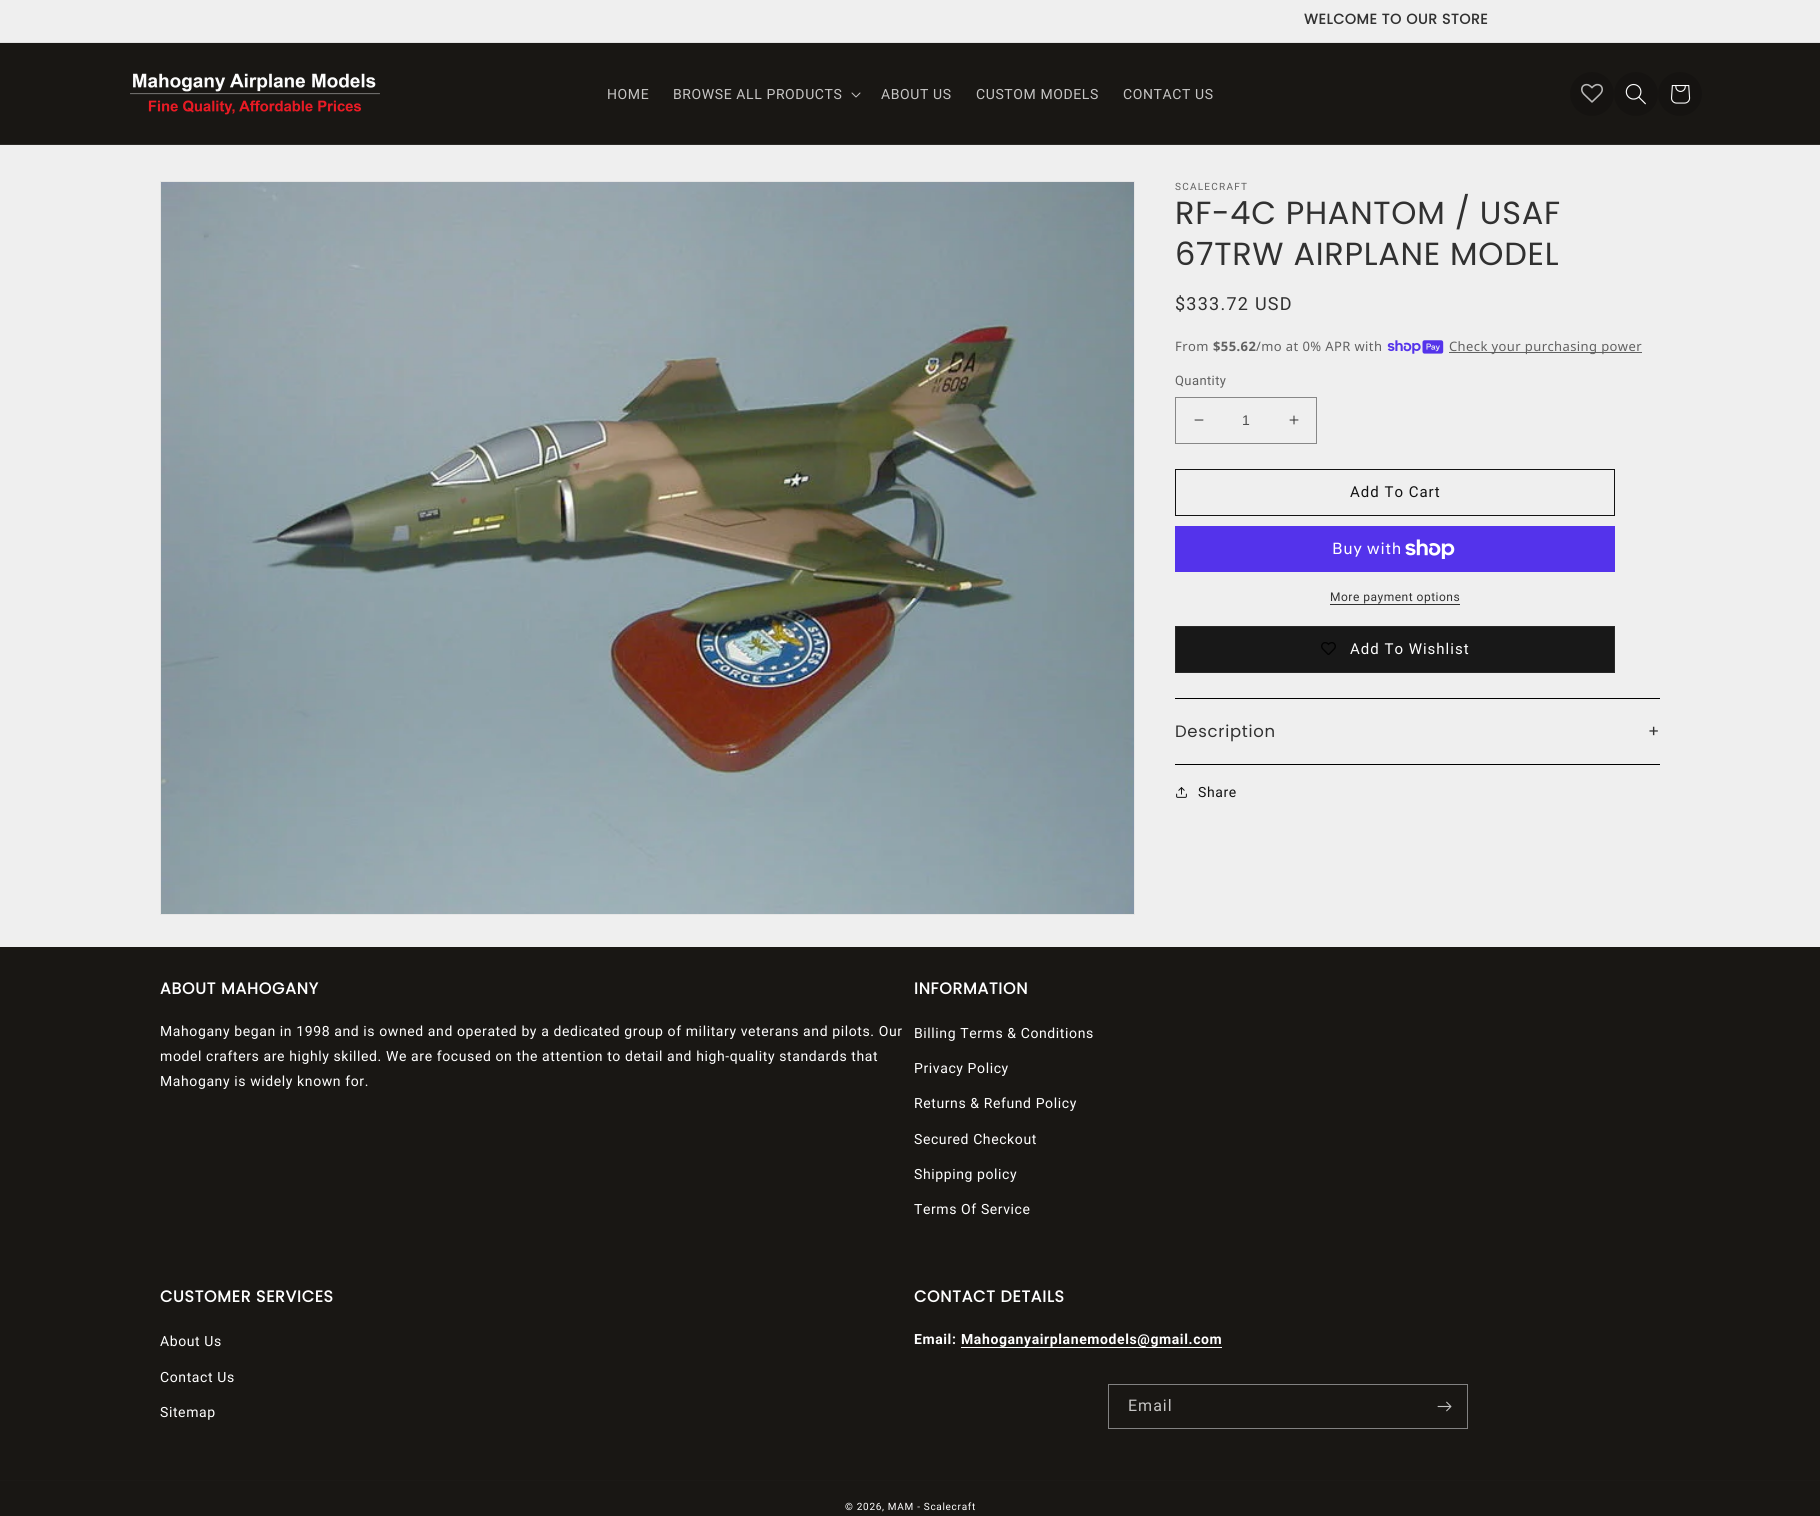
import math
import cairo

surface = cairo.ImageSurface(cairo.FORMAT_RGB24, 1820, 1516)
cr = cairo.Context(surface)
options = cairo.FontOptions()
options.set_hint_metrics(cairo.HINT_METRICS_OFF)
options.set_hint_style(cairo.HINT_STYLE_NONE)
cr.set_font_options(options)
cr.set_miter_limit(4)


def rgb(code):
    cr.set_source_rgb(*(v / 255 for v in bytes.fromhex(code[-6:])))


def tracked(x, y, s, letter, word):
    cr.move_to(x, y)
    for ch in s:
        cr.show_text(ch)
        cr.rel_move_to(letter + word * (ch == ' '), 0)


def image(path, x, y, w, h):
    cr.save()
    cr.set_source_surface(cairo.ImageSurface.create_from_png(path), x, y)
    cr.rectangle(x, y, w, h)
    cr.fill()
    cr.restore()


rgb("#efefef")
cr.paint()
for x, y, w, h, color in [
    (0, 42, 1820, 1, "#e0e0e0"),
    (0, 43, 1820, 101, "#191714"),
    (0, 144, 1820, 1, "#2b2a27"),
]:
    rgb(color)
    cr.rectangle(x, y, w, h)
    cr.fill()
image("img/1.png", 130, 73, 250, 42)
image("img/2.png", 851, 92, 10, 6)
rgb("#151311")
cr.arc(1592, 94, 22, 0, 2 * math.pi)
cr.fill()
image("img/3.png", 1581, 83, 22, 20)
cr.arc(1636, 94, 22, 0, 2 * math.pi)
cr.fill()
image("img/4.png", 1625, 83, 21, 22)
cr.arc(1680, 94, 22, 0, 2 * math.pi)
cr.fill()
image("img/5.png", 1671, 85, 20, 19)
cr.rectangle(160.5, 181.5, 974, 733)
rgb("#e6e6e6")
cr.set_line_width(1)
cr.stroke()
image("img/6.png", 161, 182, 973, 732)
image("img/7.png", 1387, 340, 57, 14)
rgb("#616161")
cr.rectangle(1449, 352, 193, 1)
cr.fill()
image("img/8.png", 1194, 419, 10, 2)
image("img/9.png", 1289, 415, 10, 10)
cr.rectangle(1175.5, 397.5, 141, 46)
rgb("#878787")
cr.stroke()
cr.rectangle(1175.5, 469.5, 439, 46)
rgb("#121212")
cr.stroke()
rgb("#5433eb")
cr.rectangle(1175, 526, 440, 46)
cr.fill()
image("img/10.png", 1405, 539, 50, 20)
rgb("#313131")
cr.rectangle(1330, 604, 130, 1)
cr.fill()
rgb("#181818")
cr.rectangle(1176, 627, 438, 45)
cr.fill()
image("img/11.png", 1321, 642, 15, 13)
cr.rectangle(1175.5, 626.5, 439, 46)
rgb("#282828")
cr.stroke()
rgb("#000000")
cr.rectangle(1175, 698, 485, 1)
cr.fill()
cr.rectangle(1175, 764, 485, 1)
cr.fill()
image("img/12.png", 1176, 787, 11, 11)
rgb("#191714")
cr.rectangle(0, 947, 1820, 533)
cr.fill()
rgb("#ffffff")
cr.rectangle(961, 1347, 261, 1)
cr.fill()
cr.rectangle(1108.5, 1384.5, 359, 44)
rgb("#828282")
cr.stroke()
image("img/13.png", 1437, 1401, 15, 11)
rgb("#191714")
cr.rectangle(0, 1481, 1820, 35)
cr.fill()
rgb("#1b1916")
cr.rectangle(0, 1480, 1820, 1)
cr.fill()
cr.select_font_face("Poppins", cairo.FONT_SLANT_NORMAL, cairo.FONT_WEIGHT_BOLD)
cr.set_font_size(14.25)
rgb("#313131")
tracked(1304, 24, "WELCOME TO OUR STORE", 0.6, 0)
cr.select_font_face("Roboto")
cr.set_font_size(14)
rgb("#c6c5c4")
for x, y, s in [
    (607, 99, "HOME"),
    (673, 99, "BROWSE ALL PRODUCTS"),
    (881, 99, "ABOUT US"),
    (976, 99, "CUSTOM MODELS"),
    (1123, 99, "CONTACT US"),
]:
    tracked(x, y, s, 0.6, 0)
cr.set_font_size(10)
rgb("#616161")
tracked(1175, 190, "SCALECRAFT", 1.25, 0)
cr.select_font_face("Poppins")
cr.set_font_size(32)
rgb("#313131")
tracked(1175, 224, "RF-4C PHANTOM / USAF", 0.7, 0)
tracked(1175, 265, "67TRW AIRPLANE MODEL", 0.7, 0)
cr.select_font_face("Roboto")
cr.set_font_size(18)
tracked(1175, 310, "$333.72 USD", 1.25, 0)
cr.select_font_face("Noto Sans")
cr.set_font_size(13)
rgb("#616161")
tracked(1175, 351, "From", 0.4, 0)
cr.select_font_face("Noto Sans", cairo.FONT_SLANT_NORMAL, cairo.FONT_WEIGHT_BOLD)
tracked(1213, 351, "$55.62", 0.4, 0)
cr.select_font_face("Noto Sans")
tracked(1256, 351, "/mo at 0% APR with", 0.4, 0)
tracked(1449, 351, "Check your purchasing power", 0.4, 0)
cr.select_font_face("Roboto")
tracked(1175, 385, "Quantity", 0.4, 0)
cr.select_font_face("Liberation Sans")
cr.set_font_size(14)
rgb("#4e4e4e")
cr.move_to(1242, 425)
cr.show_text("1")
cr.select_font_face("Roboto")
cr.set_font_size(15)
rgb("#121212")
tracked(1350, 497, "Add To Cart", 1, 0)
cr.select_font_face("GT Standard")
cr.set_font_size(16)
rgb("#ffffff")
tracked(1332, 554, "Buy with", 0.6, 0)
cr.select_font_face("Roboto")
cr.set_font_size(12)
rgb("#313131")
tracked(1330, 601, "More payment options", 0.5, 0)
cr.set_font_size(15)
rgb("#ffffff")
tracked(1350, 654, "Add To Wishlist", 1, 0)
cr.select_font_face("Poppins")
cr.set_font_size(16.5)
rgb("#313131")
tracked(1175, 737, "Description", 0.7, 0)
tracked(1648, 737, "+", 0.7, 0)
cr.select_font_face("Roboto")
cr.set_font_size(14)
rgb("#121212")
tracked(1198, 797, "Share", 0.6, 0)
cr.select_font_face("Poppins", cairo.FONT_SLANT_NORMAL, cairo.FONT_WEIGHT_BOLD)
cr.set_font_size(16)
rgb("#ffffff")
tracked(160, 994, "ABOUT MAHOGANY", 0.7, 0)
cr.select_font_face("Roboto")
cr.set_font_size(14)
for x, y, s in [
    (160, 1036, "Mahogany began in 1998 and is owned and operated by a dedicated group of military veterans and pilots. Our"),
    (160, 1061, "model crafters are highly skilled. We are focused on the attention to detail and high-quality standards that"),
    (160, 1086, "Mahogany is widely known for."),
]:
    tracked(x, y, s, 0.6, 0)
cr.select_font_face("Poppins", cairo.FONT_SLANT_NORMAL, cairo.FONT_WEIGHT_BOLD)
cr.set_font_size(16)
tracked(914, 994, "INFORMATION", 0.7, 0)
cr.select_font_face("Roboto")
cr.set_font_size(14)
for x, y, s in [
    (914, 1038, "Billing Terms & Conditions"),
    (914, 1073, "Privacy Policy"),
    (914, 1108, "Returns & Refund Policy"),
    (914, 1144, "Secured Checkout"),
    (914, 1179, "Shipping policy"),
    (914, 1214, "Terms Of Service"),
]:
    tracked(x, y, s, 0.6, 0)
cr.select_font_face("Poppins", cairo.FONT_SLANT_NORMAL, cairo.FONT_WEIGHT_BOLD)
cr.set_font_size(16)
tracked(160, 1302, "CUSTOMER SERVICES", 0.7, 0)
cr.select_font_face("Roboto")
cr.set_font_size(14)
for x, y, s in [
    (160, 1346, "About Us"),
    (160, 1382, "Contact Us"),
    (160, 1417, "Sitemap"),
]:
    tracked(x, y, s, 0.6, 0)
cr.select_font_face("Poppins", cairo.FONT_SLANT_NORMAL, cairo.FONT_WEIGHT_BOLD)
cr.set_font_size(16)
tracked(914, 1302, "CONTACT DETAILS", 0.7, 0)
cr.select_font_face("Roboto", cairo.FONT_SLANT_NORMAL, cairo.FONT_WEIGHT_BOLD)
cr.set_font_size(14)
tracked(914, 1344, "Email:", 0.6, 0)
tracked(961, 1344, "Mahoganyairplanemodels@gmail.com", 0.6, 0)
cr.select_font_face("Roboto")
cr.set_font_size(16)
rgb("#c6c5c4")
tracked(1128, 1411, "Email", 1, 0)
cr.set_font_size(10)
rgb("#ffffff")
tracked(845, 1510, "© 2026, MAM - Scalecraft", 0.7, 0)
surface.write_to_png("page.png")
